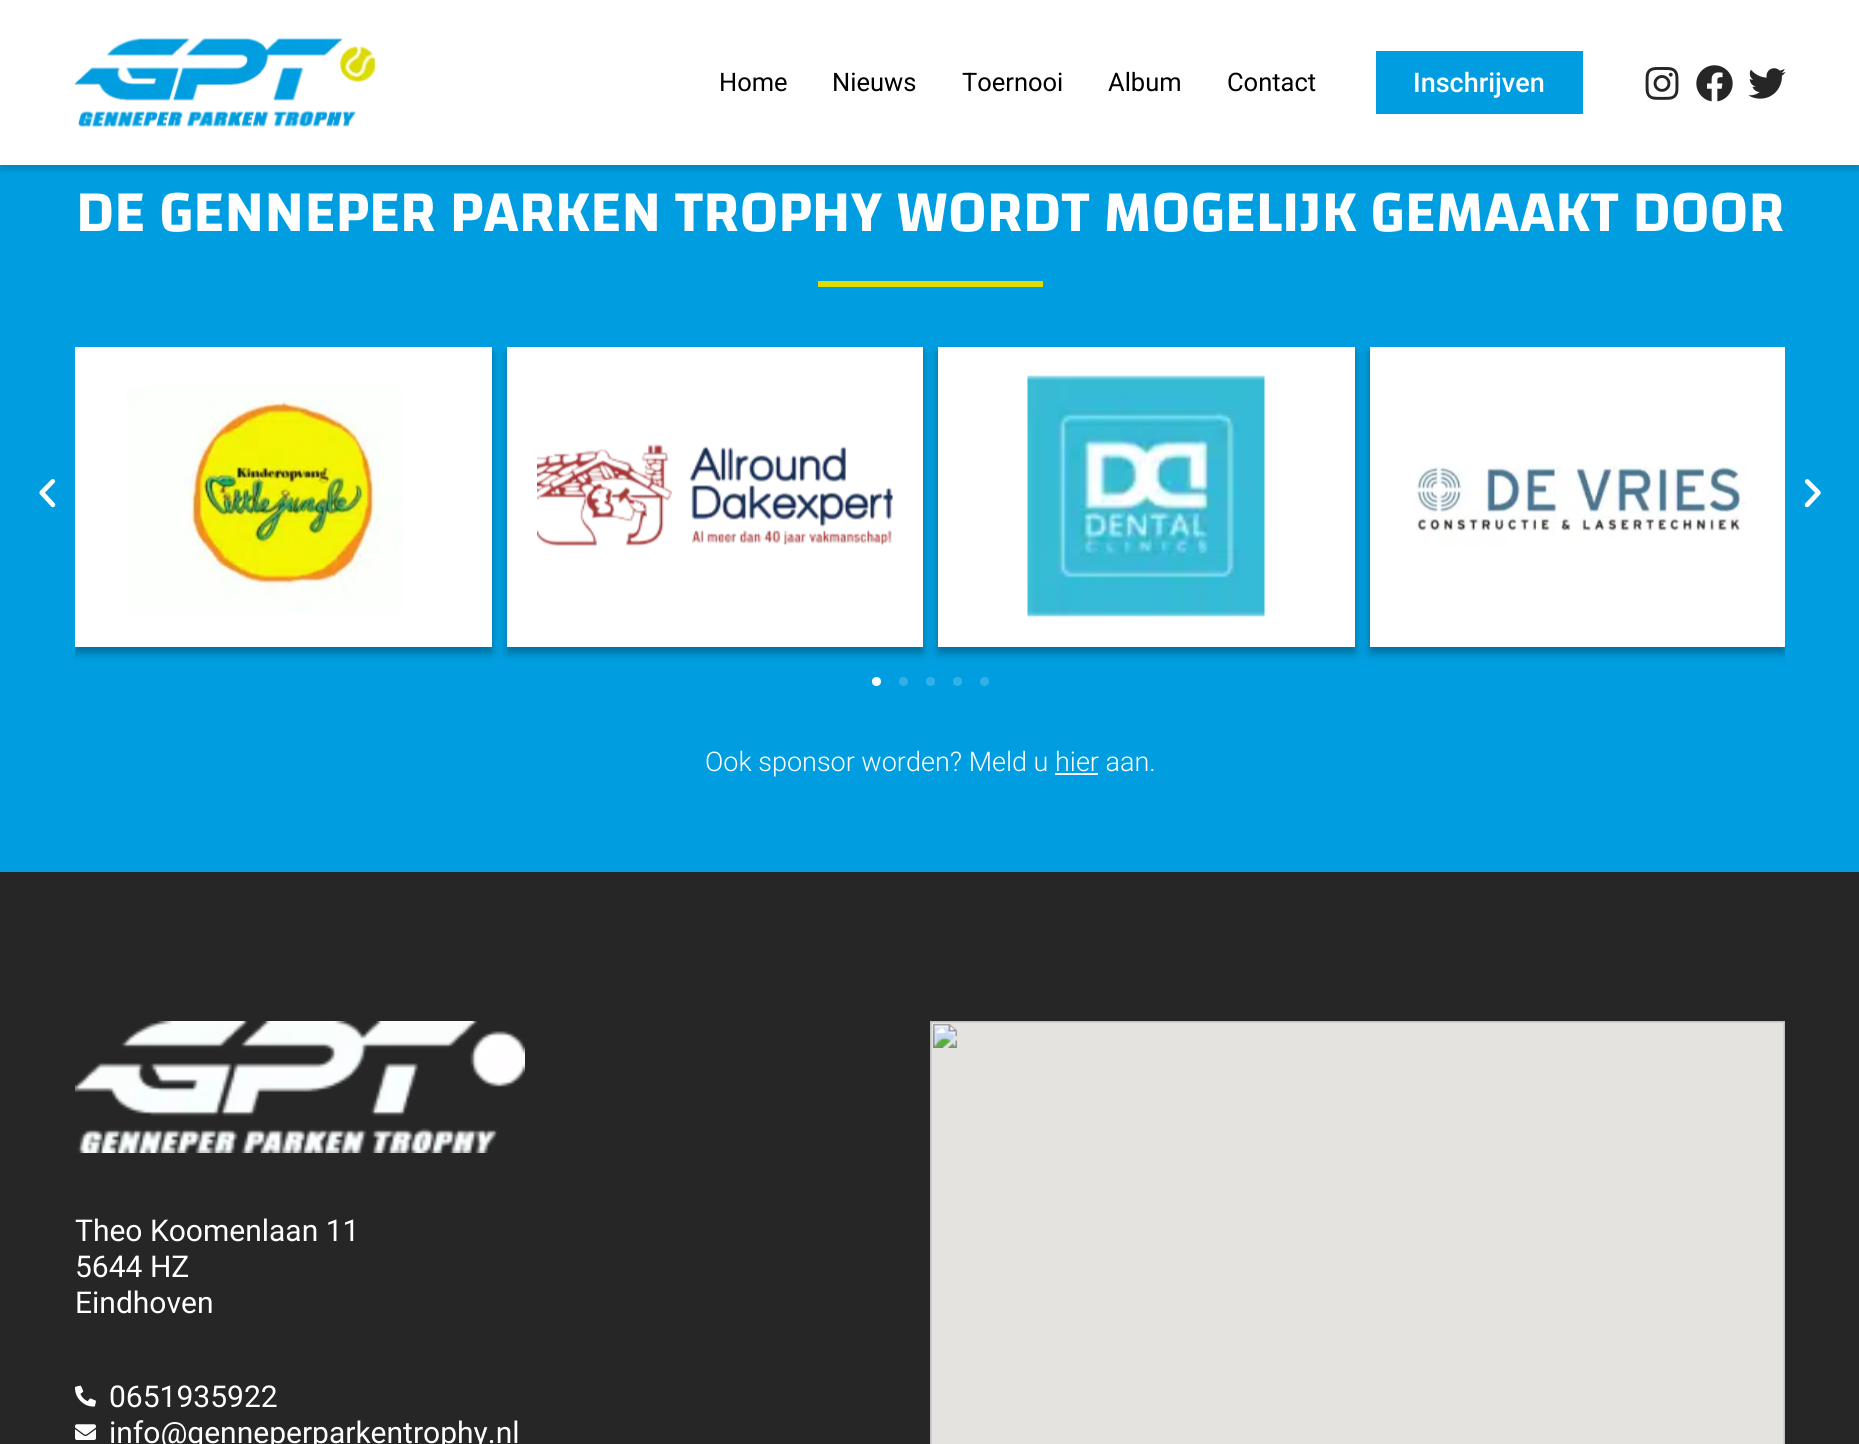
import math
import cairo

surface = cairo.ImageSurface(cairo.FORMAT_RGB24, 1859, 1444)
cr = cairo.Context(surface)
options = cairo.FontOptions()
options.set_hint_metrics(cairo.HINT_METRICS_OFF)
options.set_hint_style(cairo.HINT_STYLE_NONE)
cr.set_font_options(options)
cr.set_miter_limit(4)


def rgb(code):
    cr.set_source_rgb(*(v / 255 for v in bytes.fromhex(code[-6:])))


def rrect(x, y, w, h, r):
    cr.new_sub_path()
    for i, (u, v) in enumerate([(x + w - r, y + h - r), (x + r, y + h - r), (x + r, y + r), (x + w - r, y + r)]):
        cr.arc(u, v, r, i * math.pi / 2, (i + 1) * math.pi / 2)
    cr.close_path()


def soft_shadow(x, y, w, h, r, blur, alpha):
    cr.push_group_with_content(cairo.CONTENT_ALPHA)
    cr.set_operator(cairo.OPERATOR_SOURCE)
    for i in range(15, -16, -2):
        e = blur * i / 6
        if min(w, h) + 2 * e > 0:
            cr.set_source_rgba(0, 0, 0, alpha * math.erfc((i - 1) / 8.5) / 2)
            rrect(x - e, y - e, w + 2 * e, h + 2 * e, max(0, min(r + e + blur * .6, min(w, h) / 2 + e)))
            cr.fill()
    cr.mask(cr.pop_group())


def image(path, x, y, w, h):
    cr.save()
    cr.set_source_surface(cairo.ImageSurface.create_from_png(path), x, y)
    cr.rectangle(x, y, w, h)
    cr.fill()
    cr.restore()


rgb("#009ee0")
cr.paint()
rgb("#000000")
soft_shadow(0, 5, 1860, 165, 0, 3, 0.15)
rgb("#ffffff")
cr.rectangle(0, 0, 1859, 165)
cr.fill()
image("img/1.png", 75, 38, 300, 89)
rgb("#009ee0")
cr.rectangle(1376, 51, 207, 63)
cr.fill()
image("img/2.png", 1645, 66, 34, 34)
image("img/3.png", 1696, 65, 37, 37)
image("img/4.png", 1748, 68, 38, 31)
rgb("#dddb00")
cr.rectangle(818, 281, 225, 6)
cr.fill()
image("img/5.png", 39, 479, 17, 29)
cr.save()
cr.rectangle(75, 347, 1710, 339)
cr.clip()
rgb("#000000")
soft_shadow(75, 353, 417, 300, 0, 4.5, 0.31)
cr.restore()
rgb("#ffffff")
cr.rectangle(75, 347, 417, 300)
cr.fill()
image("img/6.png", 126, 388, 277, 227)
rgb("#000000")
soft_shadow(507, 353, 416, 300, 0, 4.5, 0.31)
rgb("#ffffff")
cr.rectangle(507, 347, 416, 300)
cr.fill()
image("img/7.png", 537, 444, 356, 102)
rgb("#000000")
soft_shadow(938, 353, 417, 300, 0, 4.5, 0.31)
rgb("#ffffff")
cr.rectangle(938, 347, 417, 300)
cr.fill()
image("img/8.png", 1027, 375, 238, 242)
cr.save()
cr.rectangle(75, 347, 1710, 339)
cr.clip()
rgb("#000000")
soft_shadow(1370, 353, 415, 300, 0, 4.5, 0.31)
cr.restore()
cr.rectangle(1370, 347, 415, 300)
cr.fill()
image("img/9.png", 1415, 464, 332, 84)
image("img/10.png", 1804, 479, 17, 29)
cr.arc(876.5, 681.5, 4.5, 0, 2 * math.pi)
cr.fill()
rgb("#33b1e6")
cr.arc(903.5, 681.5, 4.5, 0, 2 * math.pi)
cr.fill()
cr.arc(930.5, 681.5, 4.5, 0, 2 * math.pi)
cr.fill()
cr.arc(957.5, 681.5, 4.5, 0, 2 * math.pi)
cr.fill()
cr.arc(984.5, 681.5, 4.5, 0, 2 * math.pi)
cr.fill()
rgb("#ffffff")
cr.rectangle(1055, 773, 43, 2)
cr.fill()
rgb("#262626")
cr.rectangle(0, 872, 1859, 572)
cr.fill()
image("img/11.png", 75, 1021, 450, 132)
image("img/12.png", 75, 1385, 21, 22)
image("img/13.png", 75, 1424, 21, 16)
image("img/14.png", 930, 1021, 855, 423)
cr.select_font_face("Roboto")
cr.set_font_size(25.5)
rgb("#000000")
for x, y, s in [
    (719, 91, "Home"),
    (832, 91, "Nieuws"),
    (962, 91, "Toernooi"),
    (1108, 91, "Album"),
    (1227, 91, "Contact"),
]:
    cr.move_to(x, y)
    cr.show_text(s)
cr.select_font_face("Roboto Medium")
cr.set_font_size(27)
rgb("#ffffff")
cr.move_to(1413, 92)
cr.show_text("Inschrijven")
cr.select_font_face("Changa SemiBold")
cr.set_font_size(60)
cr.move_to(76, 231)
cr.show_text("DE GENNEPER PARKEN TROPHY WORDT MOGELIJK GEMAAKT DOOR")
cr.select_font_face("Roboto Light")
cr.set_font_size(27)
cr.move_to(705, 771)
cr.show_text("Ook sponsor worden? Meld u hier aan.")
cr.select_font_face("Roboto")
cr.set_font_size(30)
for x, y, s in [
    (75, 1241, "Theo Koomenlaan 11"),
    (75, 1277, "5644 HZ"),
    (75, 1313, "Eindhoven"),
    (109, 1407, "0651935922"),
    (109, 1443, "info@genneperparkentrophy.nl"),
]:
    cr.move_to(x, y)
    cr.show_text(s)
surface.write_to_png("page.png")
